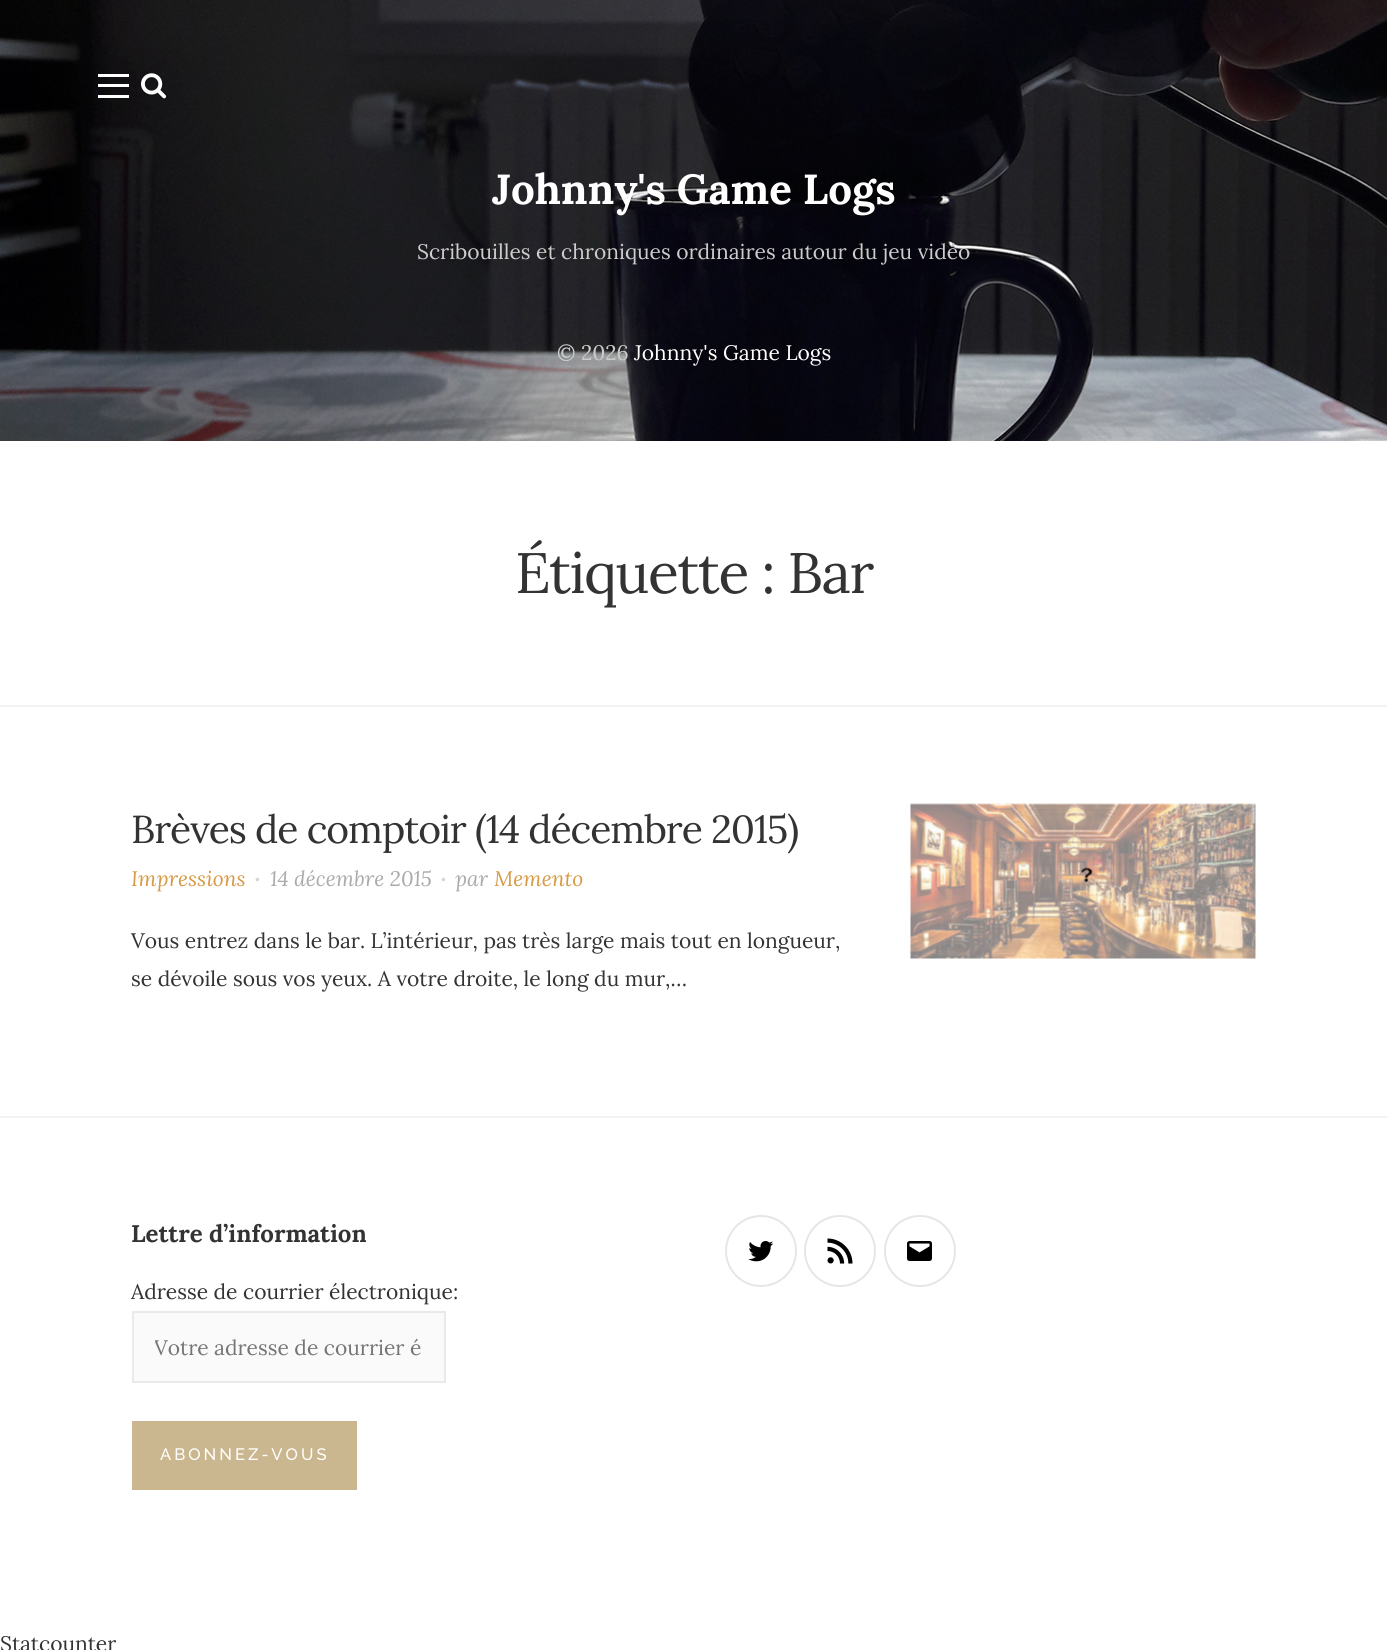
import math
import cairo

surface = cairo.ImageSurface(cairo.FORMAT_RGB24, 1387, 1650)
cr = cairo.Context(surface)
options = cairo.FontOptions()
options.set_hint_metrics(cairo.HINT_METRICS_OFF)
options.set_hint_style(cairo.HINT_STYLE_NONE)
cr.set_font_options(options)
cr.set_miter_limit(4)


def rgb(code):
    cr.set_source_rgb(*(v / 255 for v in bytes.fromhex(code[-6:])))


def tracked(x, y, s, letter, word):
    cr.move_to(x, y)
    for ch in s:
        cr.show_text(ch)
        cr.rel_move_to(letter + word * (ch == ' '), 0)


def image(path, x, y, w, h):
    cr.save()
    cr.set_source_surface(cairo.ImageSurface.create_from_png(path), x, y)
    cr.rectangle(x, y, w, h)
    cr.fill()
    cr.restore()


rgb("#ffffff")
cr.paint()
image("img/1.png", 0, 0, 1387, 441)
for x, y, w, h, color in [
    (98, 84, 31, 3, "#ffffff"),
    (98, 74, 31, 3, "#ffffff"),
    (98, 95, 31, 3, "#ffffff"),
]:
    rgb(color)
    cr.rectangle(x, y, w, h)
    cr.fill()
image("img/2.png", 141, 73, 26, 26)
rgb("#f2f2f2")
cr.rectangle(0, 1116, 1387, 2)
cr.fill()
cr.rectangle(0, 705, 1387, 2)
cr.fill()
image("img/3.png", 910, 803, 346, 156)
rgb("#fafafa")
cr.rectangle(133, 1312, 312, 70)
cr.fill_preserve()
rgb("#eaeaea")
cr.stroke()
rgb("#cbb78f")
cr.rectangle(132, 1421, 225, 69)
cr.fill()
cr.arc(761, 1251, 35, 0, 2 * math.pi)
rgb("#e6e6e6")
cr.stroke()
image("img/4.png", 748, 1241, 26, 21)
cr.arc(840, 1251, 35, 0, 2 * math.pi)
cr.stroke()
image("img/5.png", 827, 1238, 26, 26)
cr.arc(920, 1251, 35, 0, 2 * math.pi)
cr.stroke()
image("img/6.png", 907, 1241, 25, 20)
cr.select_font_face("Lora", cairo.FONT_SLANT_NORMAL, cairo.FONT_WEIGHT_BOLD)
cr.set_font_size(42)
rgb("#ffffff")
cr.move_to(492, 204)
cr.show_text("Johnny's Game Logs")
cr.select_font_face("Lora")
cr.set_font_size(21)
rgb("#cccccc")
cr.move_to(417, 259)
cr.show_text("Scribouilles et chroniques ordinaires autour du jeu vidéo")
cr.move_to(557, 360)
cr.show_text("© 2026")
rgb("#ffffff")
cr.move_to(634, 360)
cr.show_text("Johnny's Game Logs")
cr.set_font_size(57)
rgb("#333333")
tracked(515, 593, "Étiquette : Bar", -1.5, 0)
cr.set_font_size(39)
tracked(131, 843, "Brèves de comptoir (14 décembre 2015)", -1.05, 0)
cr.select_font_face("Lora", cairo.FONT_SLANT_ITALIC)
cr.set_font_size(21)
rgb("#d69944")
cr.move_to(131, 886)
cr.show_text("Impressions")
cr.set_font_size(12)
rgb("#d5d5d5")
cr.move_to(255, 884)
cr.show_text("•")
cr.set_font_size(21)
rgb("#aaaaaa")
cr.move_to(270, 886)
cr.show_text("14 décembre 2015")
cr.set_font_size(12)
rgb("#d5d5d5")
cr.move_to(441, 884)
cr.show_text("•")
cr.set_font_size(21)
rgb("#aaaaaa")
cr.move_to(455, 886)
cr.show_text("par")
rgb("#d69944")
cr.move_to(494, 886)
cr.show_text("Memento")
cr.select_font_face("Lora")
rgb("#333333")
cr.move_to(131, 948)
cr.show_text("Vous entrez dans le bar. L’intérieur, pas très large mais tout en longueur,")
cr.move_to(131, 986)
cr.show_text("se dévoile sous vos yeux. A votre droite, le long du mur,…")
cr.select_font_face("Lora", cairo.FONT_SLANT_NORMAL, cairo.FONT_WEIGHT_BOLD)
cr.set_font_size(24)
cr.move_to(131, 1242)
cr.show_text("Lettre d’information")
cr.select_font_face("Lora")
cr.set_font_size(21)
cr.move_to(131, 1299)
cr.show_text("Adresse de courrier électronique:")
cr.save()
cr.rectangle(155, 1334, 268, 27)
cr.clip()
rgb("#757575")
cr.move_to(154, 1355)
cr.show_text("Votre adresse de courrier é")
cr.restore()
cr.select_font_face("Raleway Medium")
cr.set_font_size(16.5)
rgb("#ffffff")
tracked(160, 1460, "ABONNEZ-VOUS", 3, 0)
cr.select_font_face("Lora")
cr.set_font_size(21)
rgb("#333333")
cr.move_to(0, 1651)
cr.show_text("Statcounter")
surface.write_to_png("page.png")
